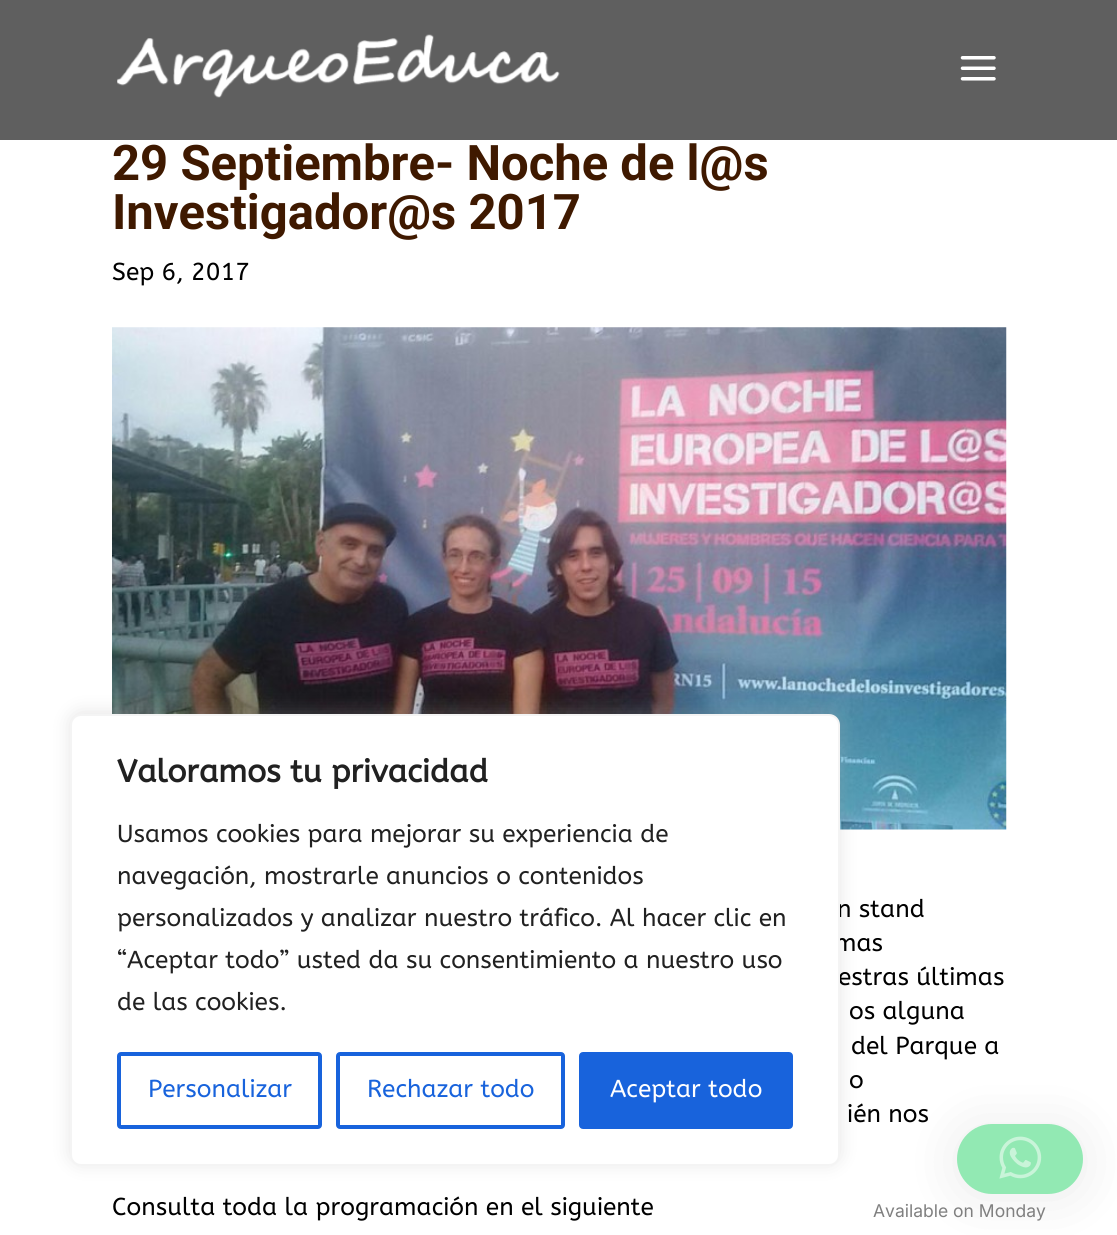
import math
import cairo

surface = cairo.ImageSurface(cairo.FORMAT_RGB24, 1117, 1235)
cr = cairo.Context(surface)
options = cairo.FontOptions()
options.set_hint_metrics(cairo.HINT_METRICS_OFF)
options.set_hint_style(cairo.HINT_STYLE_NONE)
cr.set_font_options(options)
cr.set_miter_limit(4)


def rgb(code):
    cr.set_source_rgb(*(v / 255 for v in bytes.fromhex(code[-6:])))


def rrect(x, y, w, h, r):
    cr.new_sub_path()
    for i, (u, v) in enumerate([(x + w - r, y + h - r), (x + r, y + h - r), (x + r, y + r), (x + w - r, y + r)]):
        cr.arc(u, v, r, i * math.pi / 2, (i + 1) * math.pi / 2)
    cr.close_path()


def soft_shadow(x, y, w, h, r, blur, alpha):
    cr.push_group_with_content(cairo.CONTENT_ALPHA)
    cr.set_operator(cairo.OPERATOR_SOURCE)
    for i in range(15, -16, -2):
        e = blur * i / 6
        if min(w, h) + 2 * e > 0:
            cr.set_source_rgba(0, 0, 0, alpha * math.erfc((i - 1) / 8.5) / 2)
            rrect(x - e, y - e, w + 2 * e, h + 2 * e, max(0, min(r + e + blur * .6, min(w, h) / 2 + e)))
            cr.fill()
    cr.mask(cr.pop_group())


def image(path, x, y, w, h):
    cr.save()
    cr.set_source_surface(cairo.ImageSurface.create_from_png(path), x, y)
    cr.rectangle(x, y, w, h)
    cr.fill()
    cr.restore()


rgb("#ffffff")
cr.paint()
rgb("#5f5f5f")
cr.rectangle(0, 0, 1117, 140)
cr.fill()
image("img/1.png", 117, 34, 443, 64)
image("img/2.png", 960, 56, 36, 25)
image("img/3.png", 112, 327, 895, 503)
rgb("#acabab")
soft_shadow(70, 712, 770, 452, 11, 9, 0.3)
rgb("#000000")
soft_shadow(957, 1127, 126, 70, 35, 28, 0.08)
rgb("#92e9b3")
rrect(957, 1124, 126, 70, 35)
cr.fill()
image("img/4.png", 999, 1136, 43, 43)
cr.select_font_face("Roboto", cairo.FONT_SLANT_NORMAL, cairo.FONT_WEIGHT_BOLD)
cr.set_font_size(49)
rgb("#3f1900")
cr.move_to(112, 180)
cr.show_text("29 Septiembre- Noche de l@s")
cr.move_to(112, 229)
cr.show_text("Investigador@s 2017")
cr.select_font_face("ABeeZee")
cr.set_font_size(24.5)
rgb("#000000")
for x, y, s in [
    (112, 280, "Sep 6, 2017"),
    (837, 917, "n stand"),
    (834, 951, "mas"),
    (838, 985, "estras últimas"),
    (849, 1019, "os alguna"),
    (851, 1054, "del Parque a"),
    (849, 1088, "o"),
    (847, 1122, "ién nos"),
    (112, 1215, "Consulta toda la programación en el siguiente"),
]:
    cr.move_to(x, y)
    cr.show_text(s)
rgb("#ffffff")
rrect(71, 715, 768, 450, 10)
cr.fill_preserve()
rgb("#f4f4f4")
cr.stroke()
cr.select_font_face("ABeeZee", cairo.FONT_SLANT_NORMAL, cairo.FONT_WEIGHT_BOLD)
cr.set_font_size(31.5)
rgb("#212121")
cr.move_to(117, 782)
cr.show_text("Valoramos tu privacidad")
cr.select_font_face("ABeeZee")
cr.set_font_size(24.5)
for x, y, s in [
    (117, 842, "Usamos cookies para mejorar su experiencia de"),
    (117, 884, "navegación, mostrarle anuncios o contenidos"),
    (117, 926, "personalizados y analizar nuestro tráfico. Al hacer clic en"),
    (117, 968, "“Aceptar todo” usted da su consentimiento a nuestro uso"),
    (117, 1010, "de las cookies."),
]:
    cr.move_to(x, y)
    cr.show_text(s)
rrect(119, 1054, 201, 73, 2)
rgb("#1863dc")
cr.set_line_width(4)
cr.stroke()
cr.move_to(148, 1097)
cr.show_text("Personalizar")
rrect(338, 1054, 225, 73, 2)
cr.stroke()
cr.move_to(367, 1097)
cr.show_text("Rechazar todo")
rrect(581, 1054, 210, 73, 2)
cr.fill_preserve()
cr.stroke()
rgb("#ffffff")
cr.move_to(610, 1097)
cr.show_text("Aceptar todo")
cr.select_font_face("Inter")
cr.set_font_size(17.5)
rgb("#808080")
cr.move_to(873, 1217)
cr.show_text("Available on Monday")
surface.write_to_png("page.png")
